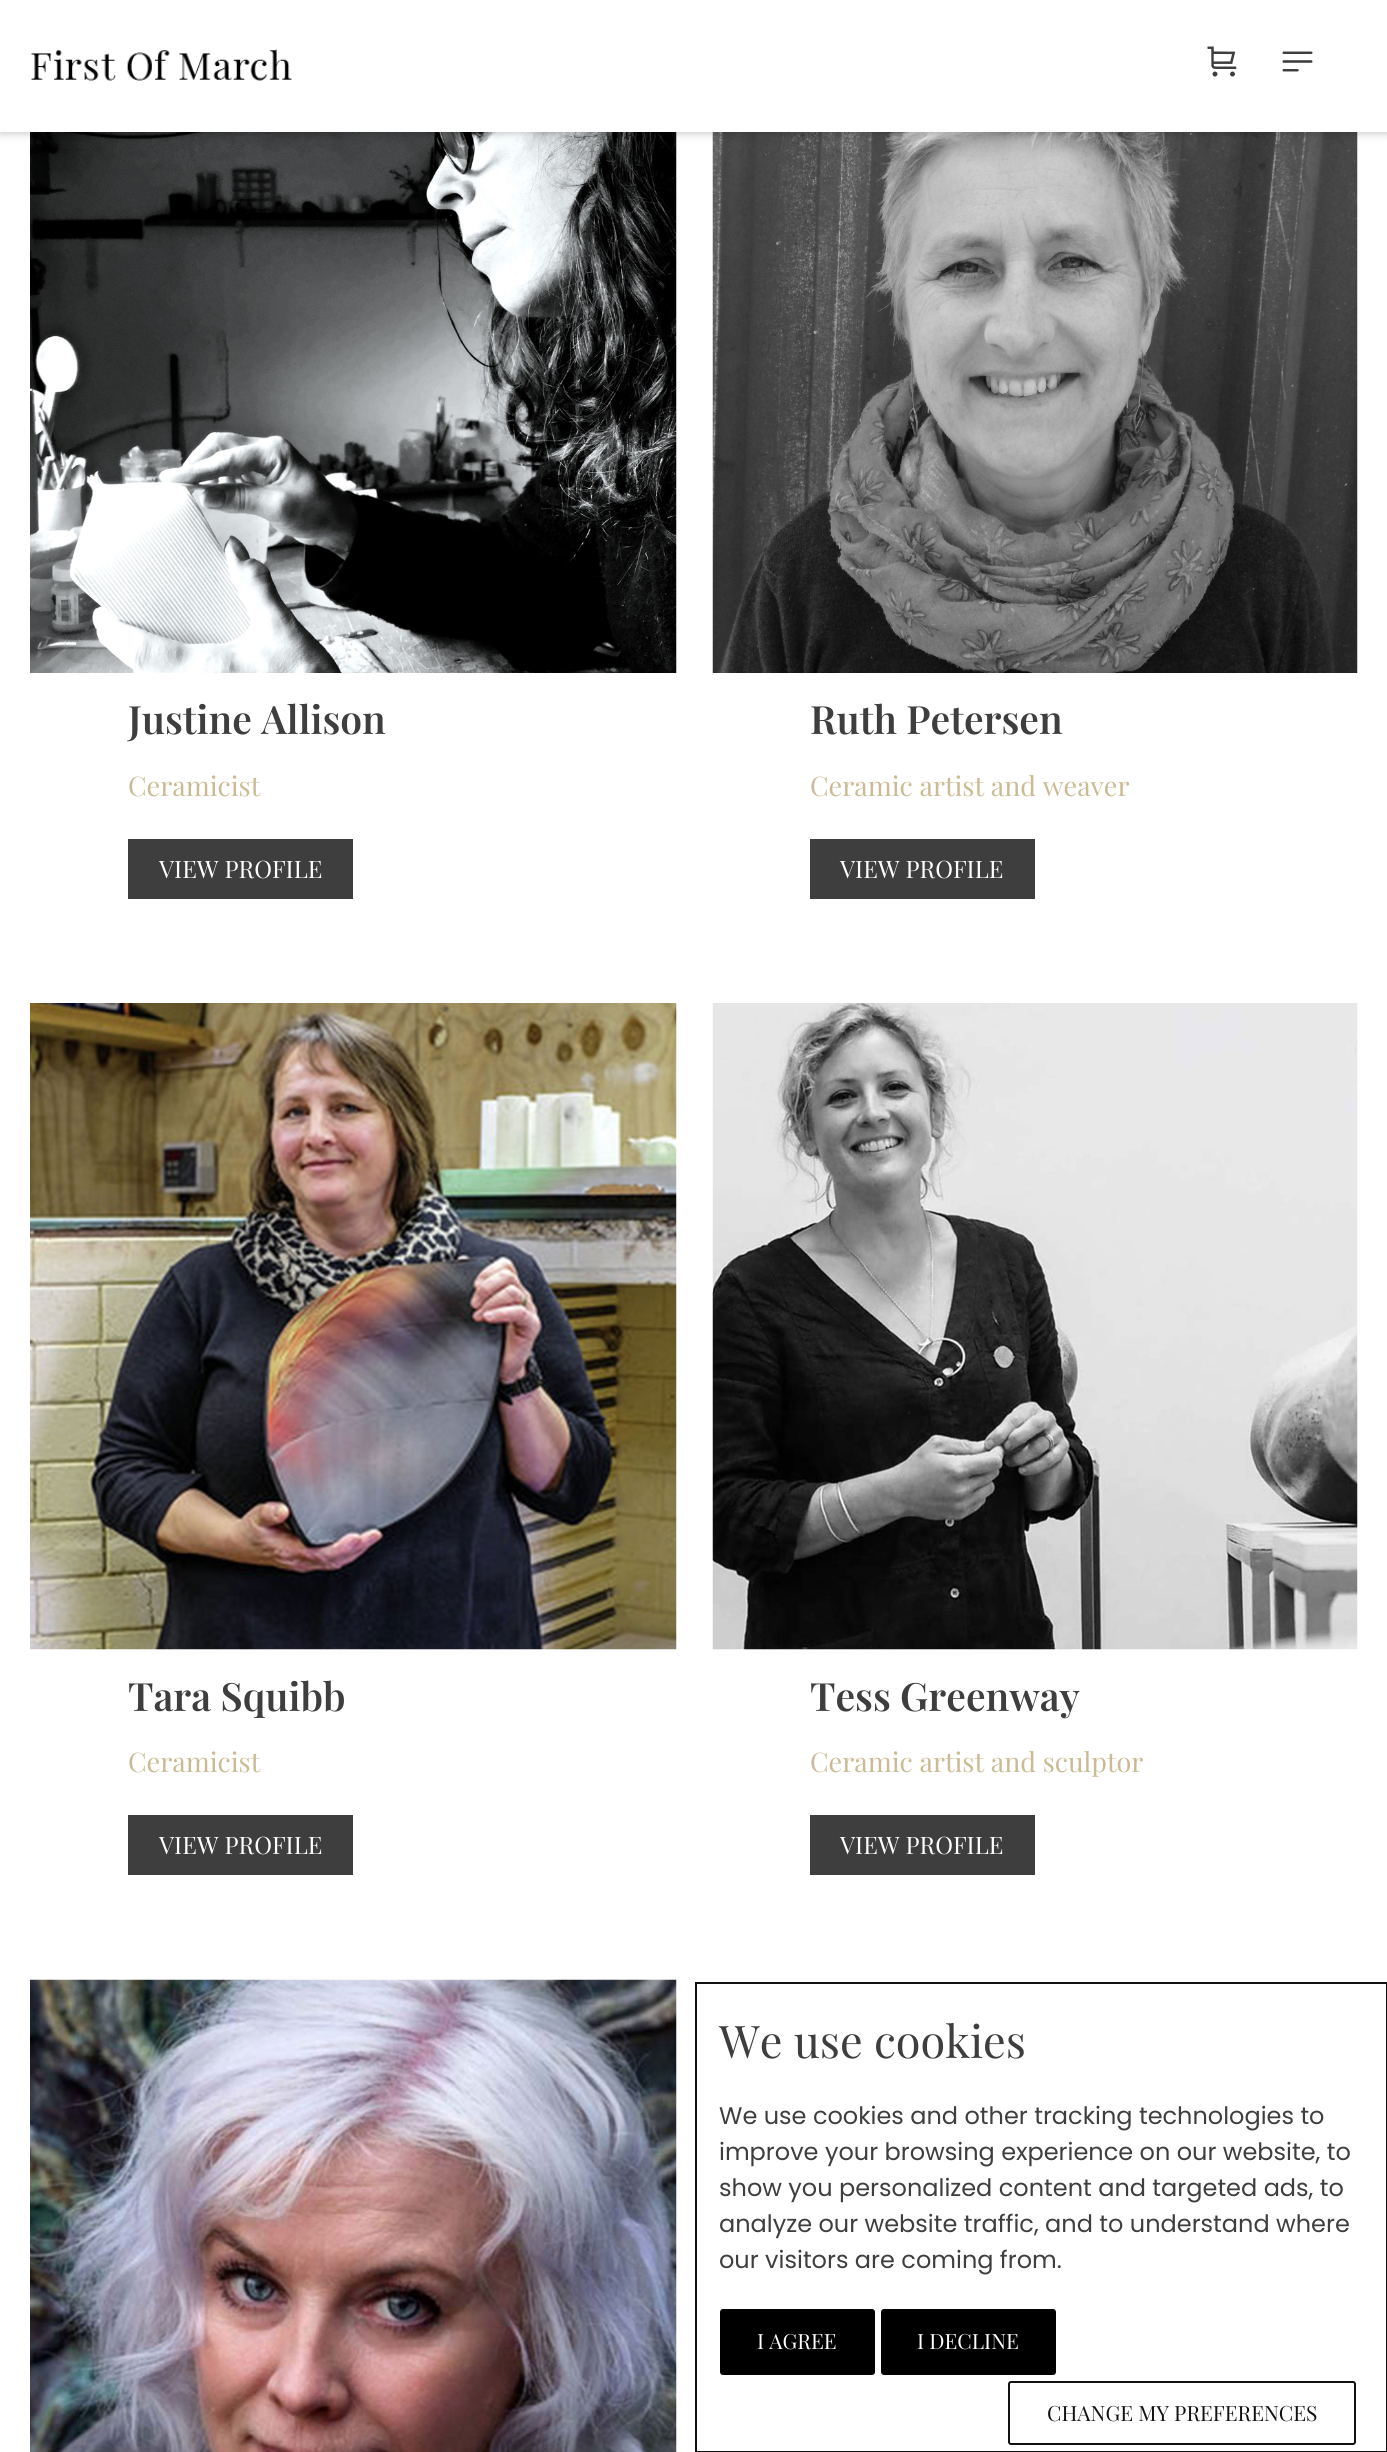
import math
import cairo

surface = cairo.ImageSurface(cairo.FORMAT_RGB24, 1387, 2452)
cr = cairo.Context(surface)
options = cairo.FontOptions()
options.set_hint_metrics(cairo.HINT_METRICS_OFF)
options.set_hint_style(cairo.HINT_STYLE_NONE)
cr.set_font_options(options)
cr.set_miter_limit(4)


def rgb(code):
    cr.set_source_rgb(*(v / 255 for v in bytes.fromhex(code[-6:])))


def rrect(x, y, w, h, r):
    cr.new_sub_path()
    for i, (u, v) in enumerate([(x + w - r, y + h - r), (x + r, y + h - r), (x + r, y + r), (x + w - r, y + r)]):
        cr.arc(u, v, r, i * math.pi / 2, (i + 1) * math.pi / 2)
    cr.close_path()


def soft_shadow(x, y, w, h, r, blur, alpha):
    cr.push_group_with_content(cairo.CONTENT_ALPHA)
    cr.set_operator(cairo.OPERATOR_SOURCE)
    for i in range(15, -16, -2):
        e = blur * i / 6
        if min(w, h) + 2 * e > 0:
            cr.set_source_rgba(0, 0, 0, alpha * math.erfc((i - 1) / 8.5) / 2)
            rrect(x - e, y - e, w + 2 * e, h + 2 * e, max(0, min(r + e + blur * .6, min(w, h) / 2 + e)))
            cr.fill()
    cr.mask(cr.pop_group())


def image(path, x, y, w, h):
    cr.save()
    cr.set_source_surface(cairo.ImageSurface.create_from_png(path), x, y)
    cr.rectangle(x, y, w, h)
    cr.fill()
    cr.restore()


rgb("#ffffff")
cr.paint()
image("img/4.png", 30, 132, 647, 541)
image("img/5.png", 712, 132, 646, 541)
rgb("#000000")
soft_shadow(0, 2, 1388, 132, 0, 4, 0.2)
rgb("#ffffff")
cr.rectangle(0, 0, 1387, 132)
cr.fill()
image("img/1.png", 31, 49, 261, 32)
image("img/2.png", 1207, 46, 30, 31)
image("img/3.png", 1282, 51, 31, 21)
rgb("#3e3e3e")
cr.rectangle(128, 839, 225, 60)
cr.fill()
cr.rectangle(810, 839, 225, 60)
cr.fill()
image("img/6.png", 30, 1003, 647, 647)
cr.rectangle(128, 1815, 225, 60)
cr.fill()
image("img/7.png", 712, 1003, 646, 647)
cr.rectangle(810, 1815, 225, 60)
cr.fill()
image("img/8.png", 30, 1979, 647, 473)
cr.rectangle(696, 1983, 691, 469)
rgb("#111111")
cr.stroke()
rgb("#000000")
rrect(720, 2309, 155, 66, 3)
cr.fill()
rrect(881, 2309, 175, 66, 3)
cr.fill()
rrect(1009, 2382, 346, 62, 2)
rgb("#111111")
cr.stroke()
cr.select_font_face("Playfair Display SemiBold")
cr.set_font_size(39)
rgb("#3e3e3e")
cr.move_to(128, 734)
cr.show_text("Justine Allison")
cr.select_font_face("Playfair Display")
cr.set_font_size(27)
rgb("#cbba93")
cr.move_to(128, 796)
cr.show_text("Ceramicist")
cr.set_font_size(24)
rgb("#ffffff")
cr.move_to(159, 878)
cr.show_text("VIEW PROFILE")
cr.select_font_face("Playfair Display SemiBold")
cr.set_font_size(39)
rgb("#3e3e3e")
cr.move_to(810, 734)
cr.show_text("Ruth Petersen")
cr.select_font_face("Playfair Display")
cr.set_font_size(27)
rgb("#cbba93")
cr.move_to(810, 796)
cr.show_text("Ceramic artist and weaver")
cr.set_font_size(24)
rgb("#ffffff")
cr.move_to(840, 878)
cr.show_text("VIEW PROFILE")
cr.select_font_face("Playfair Display SemiBold")
cr.set_font_size(39)
rgb("#3e3e3e")
cr.move_to(128, 1711)
cr.show_text("Tara Squibb")
cr.select_font_face("Playfair Display")
cr.set_font_size(27)
rgb("#cbba93")
cr.move_to(128, 1772)
cr.show_text("Ceramicist")
cr.set_font_size(24)
rgb("#ffffff")
cr.move_to(159, 1854)
cr.show_text("VIEW PROFILE")
cr.select_font_face("Playfair Display SemiBold")
cr.set_font_size(39)
rgb("#3e3e3e")
cr.move_to(810, 1711)
cr.show_text("Tess Greenway")
cr.select_font_face("Playfair Display")
cr.set_font_size(27)
rgb("#cbba93")
cr.move_to(810, 1772)
cr.show_text("Ceramic artist and sculptor")
cr.set_font_size(24)
rgb("#ffffff")
cr.move_to(840, 1854)
cr.show_text("VIEW PROFILE")
cr.set_font_size(45)
rgb("#3e3e3e")
cr.move_to(719, 2058)
cr.show_text("We use cookies")
cr.select_font_face("Poppins")
cr.set_font_size(24)
for x, y, s in [
    (719, 2124, "We use cookies and other tracking technologies to"),
    (719, 2160, "improve your browsing experience on our website, to"),
    (719, 2196, "show you personalized content and targeted ads, to"),
    (719, 2232, "analyze our website traffic, and to understand where"),
    (719, 2268, "our visitors are coming from."),
]:
    cr.move_to(x, y)
    cr.show_text(s)
cr.select_font_face("Playfair Display")
cr.set_font_size(21)
rgb("#ffffff")
cr.move_to(757, 2349)
cr.show_text("I AGREE")
cr.move_to(917, 2349)
cr.show_text("I DECLINE")
rgb("#111111")
cr.move_to(1047, 2421)
cr.show_text("CHANGE MY PREFERENCES")
surface.write_to_png("page.png")
